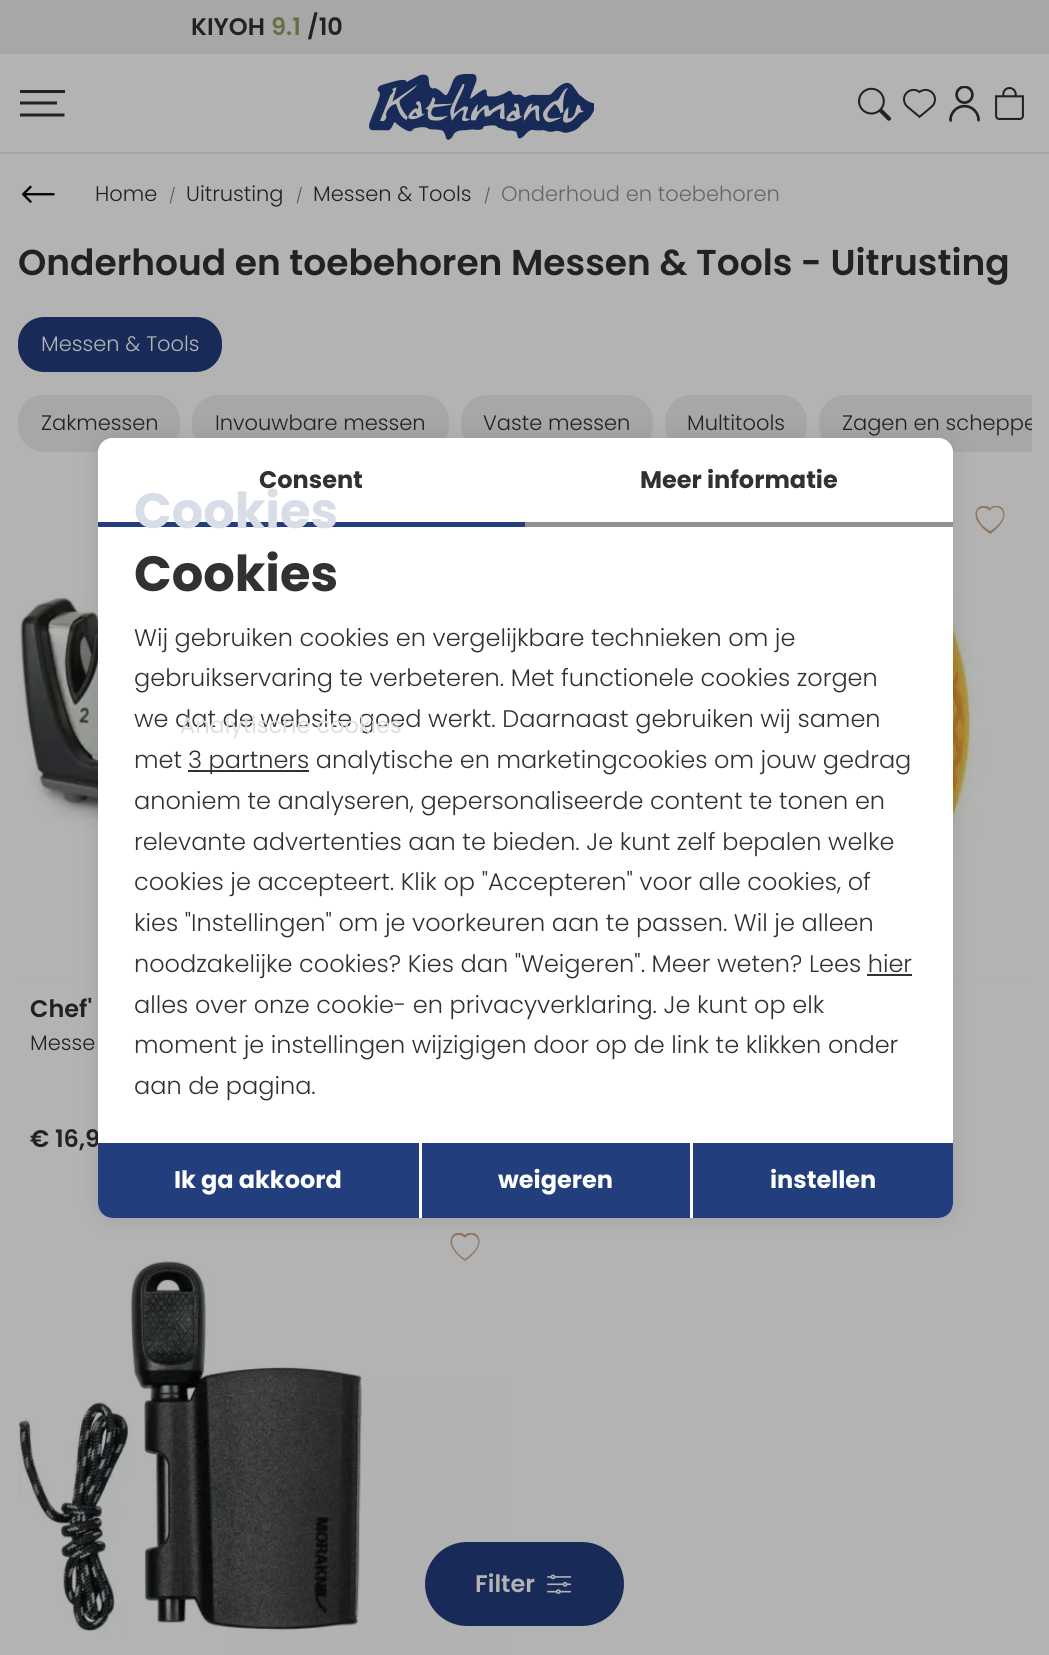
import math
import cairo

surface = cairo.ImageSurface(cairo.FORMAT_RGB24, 1049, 1655)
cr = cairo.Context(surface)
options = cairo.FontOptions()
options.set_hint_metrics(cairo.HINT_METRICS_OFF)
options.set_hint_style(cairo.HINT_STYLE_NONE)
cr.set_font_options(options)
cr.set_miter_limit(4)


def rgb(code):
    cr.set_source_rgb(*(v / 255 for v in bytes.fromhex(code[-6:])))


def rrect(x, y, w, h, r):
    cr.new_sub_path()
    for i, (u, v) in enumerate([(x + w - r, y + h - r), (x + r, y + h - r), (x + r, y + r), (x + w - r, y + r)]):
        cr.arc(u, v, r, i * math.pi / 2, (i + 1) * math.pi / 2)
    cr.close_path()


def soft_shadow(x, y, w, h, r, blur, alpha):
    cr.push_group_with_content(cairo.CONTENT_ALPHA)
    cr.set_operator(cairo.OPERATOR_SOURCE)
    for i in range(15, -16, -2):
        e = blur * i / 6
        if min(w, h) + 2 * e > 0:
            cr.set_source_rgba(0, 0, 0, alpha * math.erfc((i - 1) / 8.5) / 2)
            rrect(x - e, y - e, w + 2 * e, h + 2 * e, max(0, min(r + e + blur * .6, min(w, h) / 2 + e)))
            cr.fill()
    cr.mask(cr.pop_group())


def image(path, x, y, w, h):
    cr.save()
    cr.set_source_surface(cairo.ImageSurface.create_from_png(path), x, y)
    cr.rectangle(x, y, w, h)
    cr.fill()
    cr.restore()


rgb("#b3b3b3")
cr.paint()
for x, y, w, h, color in [
    (0, 0, 1049, 54, "#a7a7a7"),
    (0, 152, 1049, 2, "#a7a7a7"),
    (20, 90, 45, 3, "#222222"),
]:
    rgb(color)
    cr.rectangle(x, y, w, h)
    cr.fill()
cr.save()
cr.rectangle(20, 90, 45, 27)
cr.clip()
cr.new_path()
cr.move_to(19.5, 103)
cr.line_to(57, 103)
cr.move_to(19.5, 115)
cr.line_to(64.5, 115)
cr.set_line_width(3)
cr.stroke()
cr.restore()
image("img/1.png", 369, 74, 225, 66)
image("img/2.png", 858, 87, 33, 34)
image("img/3.png", 903, 88, 33, 30)
image("img/4.png", 949, 86, 31, 36)
image("img/5.png", 995, 87, 29, 33)
image("img/6.png", 21, 185, 34, 18)
rgb("#182b58")
rrect(18, 317, 204, 55, 26)
cr.fill()
rgb("#a7a7a7")
rrect(18, 395, 162, 57, 26)
cr.fill()
rrect(192, 395, 257, 57, 26)
cr.fill()
rrect(461, 395, 192, 57, 26)
cr.fill()
rrect(665, 395, 142, 57, 26)
cr.fill()
cr.new_path()
cr.move_to(845, 395)
cr.line_to(1032, 395)
cr.line_to(1032, 452)
cr.line_to(845, 452)
cr.curve_to(830.5, 452, 819, 440.5, 819, 426)
cr.line_to(819, 421)
cr.curve_to(819, 406.5, 830.5, 395, 845, 395)
cr.close_path()
cr.fill()
rgb("#adadad")
cr.rectangle(953, 979, 79, 1)
cr.fill()
image("img/7.png", 953, 491, 79, 489)
rgb("#907762")
cr.set_fill_rule(cairo.FILL_RULE_EVEN_ODD)
cr.new_path()
cr.move_to(990, 534)
cr.curve_to(1009.5, 520.5, 1006, 508.5, 999, 506)
cr.line_to(993, 506)
cr.curve_to(992, 506.5, 991, 507, 990, 508)
cr.curve_to(989, 507, 988, 506.5, 987, 506)
cr.line_to(981, 506)
cr.curve_to(974, 508.5, 970.5, 520.5, 990, 534)
cr.close_path()
cr.move_to(990, 511)
cr.line_to(991, 509)
cr.curve_to(997, 504, 1005, 510, 1003, 517)
cr.curve_to(1001, 523, 995, 528, 990, 531)
cr.curve_to(985, 528, 980, 524, 978, 518)
cr.curve_to(974, 510, 983, 504, 990, 511)
cr.close_path()
cr.fill()
rgb("#adadad")
cr.rectangle(18, 979, 80, 1)
cr.fill()
image("img/8.png", 18, 491, 80, 489)
image("img/9.png", 18, 1218, 489, 437)
rgb("#907762")
cr.new_path()
cr.move_to(465, 1261)
cr.curve_to(484.5, 1247.5, 481, 1235.5, 474, 1233)
cr.line_to(468, 1233)
cr.curve_to(467, 1233.5, 466, 1234, 465, 1235)
cr.curve_to(464, 1234, 463, 1233.5, 462, 1233)
cr.line_to(456, 1233)
cr.curve_to(449, 1235.5, 445.5, 1247.5, 465, 1261)
cr.close_path()
cr.move_to(465, 1238)
cr.line_to(466, 1237)
cr.curve_to(472, 1231, 480, 1238, 478, 1244)
cr.curve_to(476, 1251, 470, 1255, 465, 1259)
cr.curve_to(460, 1256, 455, 1251, 453, 1246)
cr.curve_to(449, 1237, 458, 1231, 465, 1238)
cr.close_path()
cr.fill()
rgb("#182b58")
rrect(426, 1543, 197, 82, 41)
cr.fill_preserve()
cr.stroke()
image("img/10.png", 547, 1574, 25, 20)
rgb("#000000")
soft_shadow(98, 438, 855, 780, 15, 11, 0.1)
cr.select_font_face("Poppins SemiBold")
cr.set_font_size(24)
rgb("#222222")
cr.move_to(191, 35)
cr.show_text("KIYOH")
rgb("#65713f")
cr.move_to(271, 35)
cr.show_text("9.1")
rgb("#222222")
cr.move_to(307, 35)
cr.show_text("/10")
cr.select_font_face("Poppins Light")
cr.set_font_size(21)
cr.move_to(95, 201)
cr.show_text("Home")
cr.set_font_size(15)
rgb("#4c5258")
cr.move_to(169, 201)
cr.show_text("/")
cr.set_font_size(21)
rgb("#222222")
cr.move_to(186, 201)
cr.show_text("Uitrusting")
cr.set_font_size(15)
rgb("#4c5258")
cr.move_to(296, 201)
cr.show_text("/")
cr.set_font_size(21)
rgb("#222222")
cr.move_to(313, 201)
cr.show_text("Messen & Tools")
cr.set_font_size(15)
rgb("#4c5258")
cr.move_to(484, 201)
cr.show_text("/")
cr.set_font_size(21)
rgb("#666666")
cr.move_to(501, 201)
cr.show_text("Onderhoud en toebehoren")
cr.select_font_face("Poppins SemiBold")
cr.set_font_size(36)
rgb("#222222")
cr.move_to(18, 275)
cr.show_text("Onderhoud en toebehoren Messen & Tools - Uitrusting")
cr.select_font_face("Poppins Light")
cr.set_font_size(21)
rgb("#b3b3b3")
cr.move_to(41, 351)
cr.show_text("Messen & Tools")
rgb("#222222")
for x, y, s in [
    (41, 430, "Zakmessen"),
    (215, 430, "Invouwbare messen"),
    (483, 430, "Vaste messen"),
    (687, 430, "Multitools"),
]:
    cr.move_to(x, y)
    cr.show_text(s)
cr.save()
cr.set_fill_rule(cairo.FILL_RULE_WINDING)
cr.rectangle(18, 395, 1014, 64)
cr.clip()
cr.move_to(842, 430)
cr.show_text("Zagen en scheppe")
cr.restore()
cr.select_font_face("Poppins SemiBold")
cr.set_font_size(24)
cr.move_to(30, 1017)
cr.show_text("Chef'")
cr.select_font_face("Poppins Light")
cr.set_font_size(21)
cr.move_to(30, 1050)
cr.show_text("Messe")
cr.select_font_face("Poppins SemiBold")
cr.set_font_size(24)
cr.move_to(30, 1147)
cr.show_text("€ 16,9")
rgb("#b3b3b3")
cr.move_to(475, 1592)
cr.show_text("Filter")
rgb("#ffffff")
rrect(98, 438, 855, 780, 15)
cr.fill()
cr.new_path()
cr.move_to(113, 438)
cr.line_to(525, 438)
cr.line_to(525, 527)
cr.line_to(98, 527)
cr.line_to(98, 453)
cr.curve_to(98, 444.5, 104.5, 438, 113, 438)
cr.close_path()
cr.fill()
rgb("#223e7d")
cr.rectangle(98, 522, 427, 5)
cr.fill()
cr.select_font_face("Poppins", cairo.FONT_SLANT_NORMAL, cairo.FONT_WEIGHT_BOLD)
rgb("#313131")
cr.move_to(259, 488)
cr.show_text("Consent")
rgb("#ffffff")
cr.new_path()
cr.move_to(525, 438)
cr.line_to(938, 438)
cr.curve_to(946.5, 438, 953, 444.5, 953, 453)
cr.line_to(953, 527)
cr.line_to(525, 527)
cr.close_path()
cr.fill()
rgb("#919191")
cr.rectangle(525, 522, 428, 5)
cr.fill()
rgb("#313131")
cr.move_to(640, 488)
cr.show_text("Meer informatie")
cr.set_font_size(49.5)
rgb("#d8dde8")
cr.move_to(134, 528)
cr.show_text("Cookies")
rgb("#313131")
cr.move_to(134, 591)
cr.show_text("Cookies")
cr.select_font_face("Poppins Light")
cr.set_font_size(24)
for x, y, s in [
    (134, 646, "Wij gebruiken cookies en vergelijkbare technieken om je"),
    (134, 686, "gebruikservaring te verbeteren. Met functionele cookies zorgen"),
    (134, 727, "we dat de website goed werkt. Daarnaast gebruiken wij samen"),
]:
    cr.move_to(x, y)
    cr.show_text(s)
cr.select_font_face("Poppins")
cr.set_font_size(22.5)
rgb("#dfdfdf")
cr.move_to(180, 733)
cr.show_text("Analytische cookies")
cr.select_font_face("Poppins Light")
cr.set_font_size(24)
rgb("#313131")
cr.move_to(134, 768)
cr.show_text("met")
cr.rectangle(188, 770, 121, 2)
cr.fill()
for x, y, s in [
    (188, 768, "3 partners analytische en marketingcookies om jouw gedrag"),
    (134, 809, "anoniem te analyseren, gepersonaliseerde content te tonen en"),
    (134, 850, "relevante advertenties aan te bieden. Je kunt zelf bepalen welke"),
    (134, 890, "cookies je accepteert. Klik op \"Accepteren\" voor alle cookies, of"),
    (134, 931, "kies \"Instellingen\" om je voorkeuren aan te passen. Wil je alleen"),
    (134, 972, "noodzakelijke cookies? Kies dan \"Weigeren\". Meer weten? Lees hier"),
]:
    cr.move_to(x, y)
    cr.show_text(s)
cr.rectangle(867, 974, 45, 2)
cr.fill()
for x, y, s in [
    (134, 1013, "alles over onze cookie- en privacyverklaring. Je kunt op elk"),
    (134, 1053, "moment je instellingen wijzigigen door op de link te klikken onder"),
    (134, 1094, "aan de pagina."),
]:
    cr.move_to(x, y)
    cr.show_text(s)
rgb("#223e7d")
cr.new_path()
cr.move_to(98, 1143)
cr.line_to(419, 1143)
cr.line_to(419, 1218)
cr.line_to(113, 1218)
cr.curve_to(104.5, 1218, 98, 1211.5, 98, 1203)
cr.close_path()
cr.fill()
cr.select_font_face("Poppins", cairo.FONT_SLANT_NORMAL, cairo.FONT_WEIGHT_BOLD)
rgb("#ffffff")
cr.move_to(174, 1188)
cr.show_text("Ik ga akkoord")
rgb("#223e7d")
cr.rectangle(422, 1143, 268, 75)
cr.fill()
rgb("#ffffff")
cr.move_to(498, 1188)
cr.show_text("weigeren")
rgb("#223e7d")
cr.new_path()
cr.move_to(690, 1143)
cr.line_to(953, 1143)
cr.line_to(953, 1203)
cr.curve_to(953, 1211.5, 946.5, 1218, 938, 1218)
cr.line_to(690, 1218)
cr.close_path()
cr.fill()
rgb("#ffffff")
cr.rectangle(690, 1143, 3, 75)
cr.fill()
cr.move_to(770, 1188)
cr.show_text("instellen")
surface.write_to_png("page.png")
